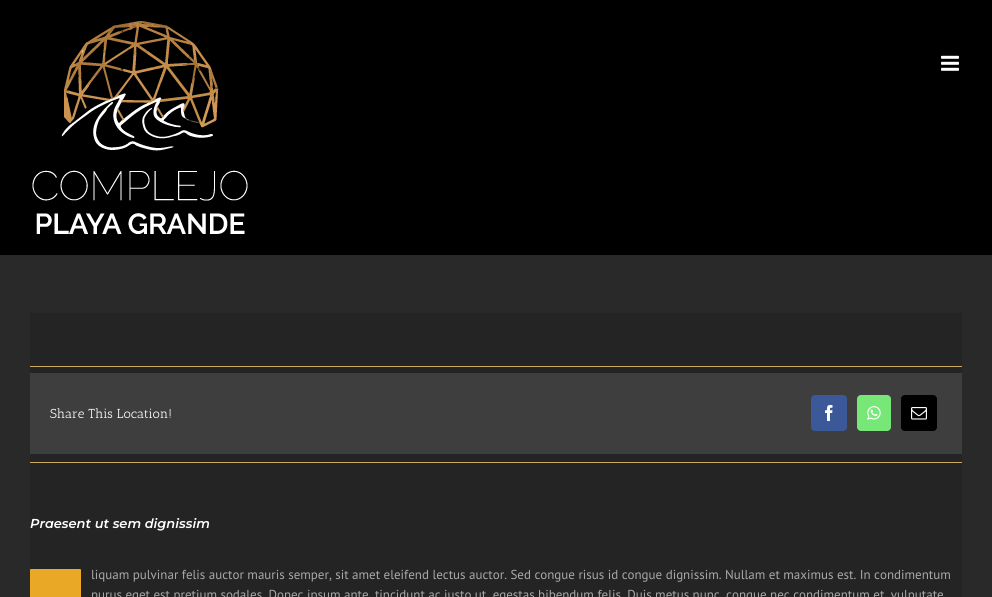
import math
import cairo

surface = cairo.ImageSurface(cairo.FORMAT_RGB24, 992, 597)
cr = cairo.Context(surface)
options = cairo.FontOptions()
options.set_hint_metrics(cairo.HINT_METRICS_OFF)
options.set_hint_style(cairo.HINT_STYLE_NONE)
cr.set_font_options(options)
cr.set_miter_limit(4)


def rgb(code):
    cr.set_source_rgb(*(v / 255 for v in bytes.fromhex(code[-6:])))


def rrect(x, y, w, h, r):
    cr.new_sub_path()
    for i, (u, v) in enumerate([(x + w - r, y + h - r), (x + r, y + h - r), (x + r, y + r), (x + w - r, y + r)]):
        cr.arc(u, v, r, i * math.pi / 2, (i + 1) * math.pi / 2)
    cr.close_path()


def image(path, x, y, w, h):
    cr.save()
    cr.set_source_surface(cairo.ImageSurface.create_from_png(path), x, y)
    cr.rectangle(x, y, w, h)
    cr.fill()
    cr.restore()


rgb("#29292a")
cr.paint()
rgb("#000000")
cr.rectangle(0, 0, 992, 255)
cr.fill()
image("img/1.png", 32, 21, 216, 213)
image("img/2.png", 941, 55, 18, 16)
for x, y, w, h, color in [
    (30, 313, 932, 284, "#242424"),
    (30, 366, 932, 1, "#cbaa5c"),
    (30, 373, 932, 81, "#3e3e3e"),
]:
    rgb(color)
    cr.rectangle(x, y, w, h)
    cr.fill()
rgb("#3b5998")
rrect(811.5, 395.5, 35, 35, 3.5)
cr.fill_preserve()
cr.set_line_width(1)
cr.stroke()
image("img/3.png", 825, 405, 8, 16)
rgb("#77e878")
rrect(857.5, 395.5, 33, 35, 3.5)
cr.fill_preserve()
cr.stroke()
image("img/4.png", 867, 406, 14, 14)
rgb("#000000")
rrect(901.5, 395.5, 35, 35, 3.5)
cr.fill_preserve()
cr.stroke()
image("img/5.png", 911, 407, 16, 13)
rgb("#cbaa5c")
cr.rectangle(30, 462, 932, 1)
cr.fill()
rgb("#e9a825")
rrect(30, 569, 51, 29, 1)
cr.fill()
cr.select_font_face("Antic Slab")
cr.set_font_size(13)
rgb("#ffffff")
cr.move_to(50, 418)
cr.show_text("Share This Location!")
cr.select_font_face("Montserrat Thin", cairo.FONT_SLANT_ITALIC)
cr.move_to(30, 528)
cr.show_text("Praesent ut sem dignissim")
cr.select_font_face("PT Sans")
rgb("#aaa9a9")
cr.move_to(91, 579)
cr.show_text("liquam pulvinar felis auctor mauris semper, sit amet eleifend lectus auctor. Sed congue risus id congue dignissim. Nullam et maximus est. In condimentum")
cr.move_to(91, 599)
cr.show_text("purus eget est pretium sodales. Donec ipsum ante, tincidunt ac justo ut, egestas bibendum felis. Duis metus nunc, congue nec condimentum et, vulputate")
surface.write_to_png("page.png")
